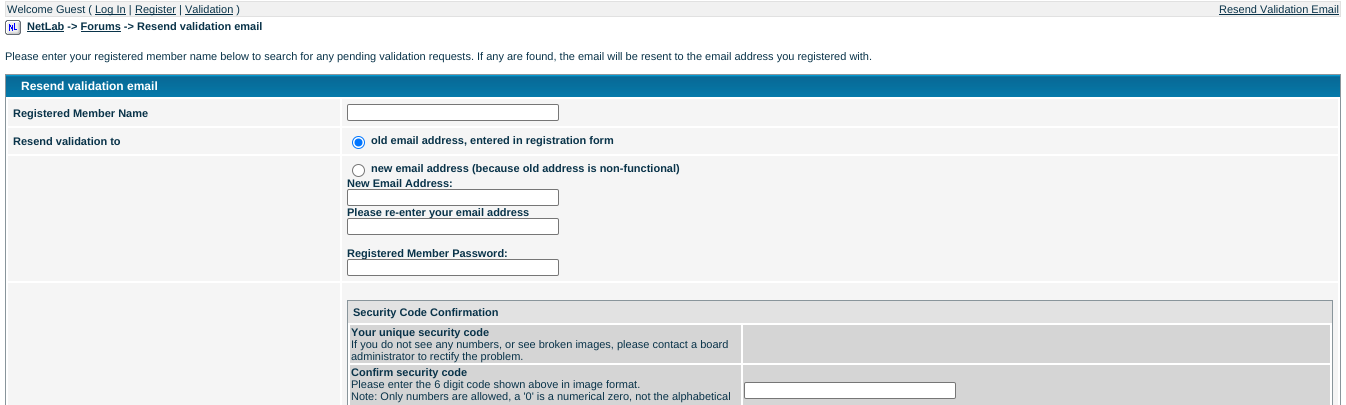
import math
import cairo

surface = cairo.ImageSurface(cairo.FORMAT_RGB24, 1346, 405)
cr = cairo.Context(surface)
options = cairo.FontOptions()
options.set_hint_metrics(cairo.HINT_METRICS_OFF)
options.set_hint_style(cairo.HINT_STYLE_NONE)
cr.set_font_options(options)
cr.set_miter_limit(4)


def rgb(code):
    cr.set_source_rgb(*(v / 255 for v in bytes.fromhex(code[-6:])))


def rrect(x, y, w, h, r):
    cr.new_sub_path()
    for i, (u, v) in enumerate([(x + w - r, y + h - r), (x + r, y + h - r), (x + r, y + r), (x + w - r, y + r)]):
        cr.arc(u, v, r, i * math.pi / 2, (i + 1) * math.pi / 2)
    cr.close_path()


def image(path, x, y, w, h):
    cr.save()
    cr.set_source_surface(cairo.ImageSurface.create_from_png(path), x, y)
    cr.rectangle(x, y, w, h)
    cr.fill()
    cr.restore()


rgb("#ffffff")
cr.paint()
rgb("#f1f1f1")
cr.rectangle(5.5, 1.5, 1335, 15)
cr.fill_preserve()
rgb("#e1e1e1")
cr.set_line_width(1)
cr.stroke()
for x, y, w, h, color in [
    (95, 14, 31, 1, "#093349"),
    (135, 14, 41, 1, "#093349"),
    (185, 14, 48, 1, "#093349"),
    (1219, 14, 120, 1, "#093349"),
]:
    rgb(color)
    cr.rectangle(x, y, w, h)
    cr.fill()
image("img/1.png", 5, 20, 16, 15)
cr.rectangle(27, 31, 37, 1)
cr.fill()
cr.rectangle(81, 31, 40, 1)
cr.fill()
cr.rectangle(5.5, 74.5, 1335, 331)
rgb("#89959b")
cr.stroke()
image("img/2.png", 6, 75, 1334, 22)
rgb("#f5f5f5")
cr.rectangle(8, 99, 332, 27)
cr.fill()
cr.rectangle(342, 99, 996, 27)
cr.fill()
rgb("#ffffff")
rrect(347.5, 104.5, 211, 16, 1.5)
cr.fill_preserve()
rgb("#767676")
cr.stroke()
rgb("#f5f5f5")
cr.rectangle(8, 128, 332, 26)
cr.fill()
cr.rectangle(342, 128, 996, 26)
cr.fill()
rgb("#ffffff")
cr.arc(358.5, 142.5, 6, 0, 2 * math.pi)
cr.fill_preserve()
rgb("#0075ff")
cr.stroke()
cr.arc(358.5, 142.5, 4, 0, 2 * math.pi)
cr.fill()
rgb("#f5f5f5")
cr.rectangle(8, 156, 332, 125)
cr.fill()
cr.rectangle(342, 156, 996, 125)
cr.fill()
rgb("#ffffff")
cr.arc(358.5, 170.5, 6, 0, 2 * math.pi)
cr.fill_preserve()
rgb("#767676")
cr.stroke()
rgb("#ffffff")
rrect(347.5, 189.5, 211, 16, 1.5)
cr.fill_preserve()
rgb("#767676")
cr.stroke()
for x, y, w, h, color in [
    (8, 283, 332, 122, "#f5f5f5"),
    (342, 283, 996, 122, "#f5f5f5"),
    (348, 323, 984, 82, "#ffffff"),
]:
    rgb(color)
    cr.rectangle(x, y, w, h)
    cr.fill()
cr.rectangle(347.5, 300.5, 985, 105)
rgb("#89959b")
cr.stroke()
for x, y, w, h, color in [
    (348, 301, 984, 22, "#e2e2e2"),
    (350, 325, 391, 38, "#d5d5d5"),
    (743, 325, 587, 38, "#d5d5d5"),
    (350, 365, 391, 40, "#d5d5d5"),
    (743, 365, 587, 40, "#d5d5d5"),
]:
    rgb(color)
    cr.rectangle(x, y, w, h)
    cr.fill()
rgb("#ffffff")
rrect(744.5, 382.5, 211, 16, 1.5)
cr.fill_preserve()
rgb("#767676")
cr.stroke()
cr.select_font_face("Liberation Sans")
cr.set_font_size(11)
rgb("#093349")
for x, y, s in [
    (7, 13, "Welcome Guest ("),
    (95, 13, "Log In |"),
    (135, 13, "Register | Validation )"),
    (1219, 13, "Resend Validation Email"),
]:
    cr.move_to(x, y)
    cr.show_text(s)
cr.select_font_face("Liberation Sans", cairo.FONT_SLANT_NORMAL, cairo.FONT_WEIGHT_BOLD)
cr.move_to(27, 30)
cr.show_text("NetLab -> Forums -> Resend validation email")
cr.select_font_face("Liberation Sans")
cr.move_to(5, 60)
cr.show_text("Please enter your registered member name below to search for any pending validation requests. If any are found, the email will be resent to the email address you registered with.")
cr.select_font_face("Liberation Sans", cairo.FONT_SLANT_NORMAL, cairo.FONT_WEIGHT_BOLD)
cr.set_font_size(12)
rgb("#ffffff")
cr.move_to(21, 90)
cr.show_text("Resend validation email")
cr.set_font_size(11)
rgb("#093349")
for x, y, s in [
    (13, 117, "Registered Member Name"),
    (13, 145, "Resend validation to"),
    (371, 144, "old email address, entered in registration form"),
    (371, 172, "new email address (because old address is non-functional)"),
    (347, 187, "New Email Address:"),
    (347, 216, "Please re-enter your email address"),
]:
    cr.move_to(x, y)
    cr.show_text(s)
rgb("#ffffff")
rrect(347.5, 218.5, 211, 16, 1.5)
cr.fill_preserve()
rgb("#767676")
cr.stroke()
rgb("#093349")
cr.move_to(347, 257)
cr.show_text("Registered Member Password:")
rgb("#ffffff")
rrect(347.5, 259.5, 211, 16, 1.5)
cr.fill_preserve()
rgb("#767676")
cr.stroke()
rgb("#093349")
cr.move_to(353, 316)
cr.show_text("Security Code Confirmation")
cr.move_to(351, 336)
cr.show_text("Your unique security code")
cr.select_font_face("Liberation Sans")
cr.move_to(351, 348)
cr.show_text("If you do not see any numbers, or see broken images, please contact a board")
cr.move_to(351, 360)
cr.show_text("administrator to rectify the problem.")
cr.select_font_face("Liberation Sans", cairo.FONT_SLANT_NORMAL, cairo.FONT_WEIGHT_BOLD)
cr.move_to(351, 376)
cr.show_text("Confirm security code")
cr.select_font_face("Liberation Sans")
cr.move_to(351, 388)
cr.show_text("Please enter the 6 digit code shown above in image format.")
cr.move_to(351, 400)
cr.show_text("Note: Only numbers are allowed, a '0' is a numerical zero, not the alphabetical")
surface.write_to_png("page.png")
